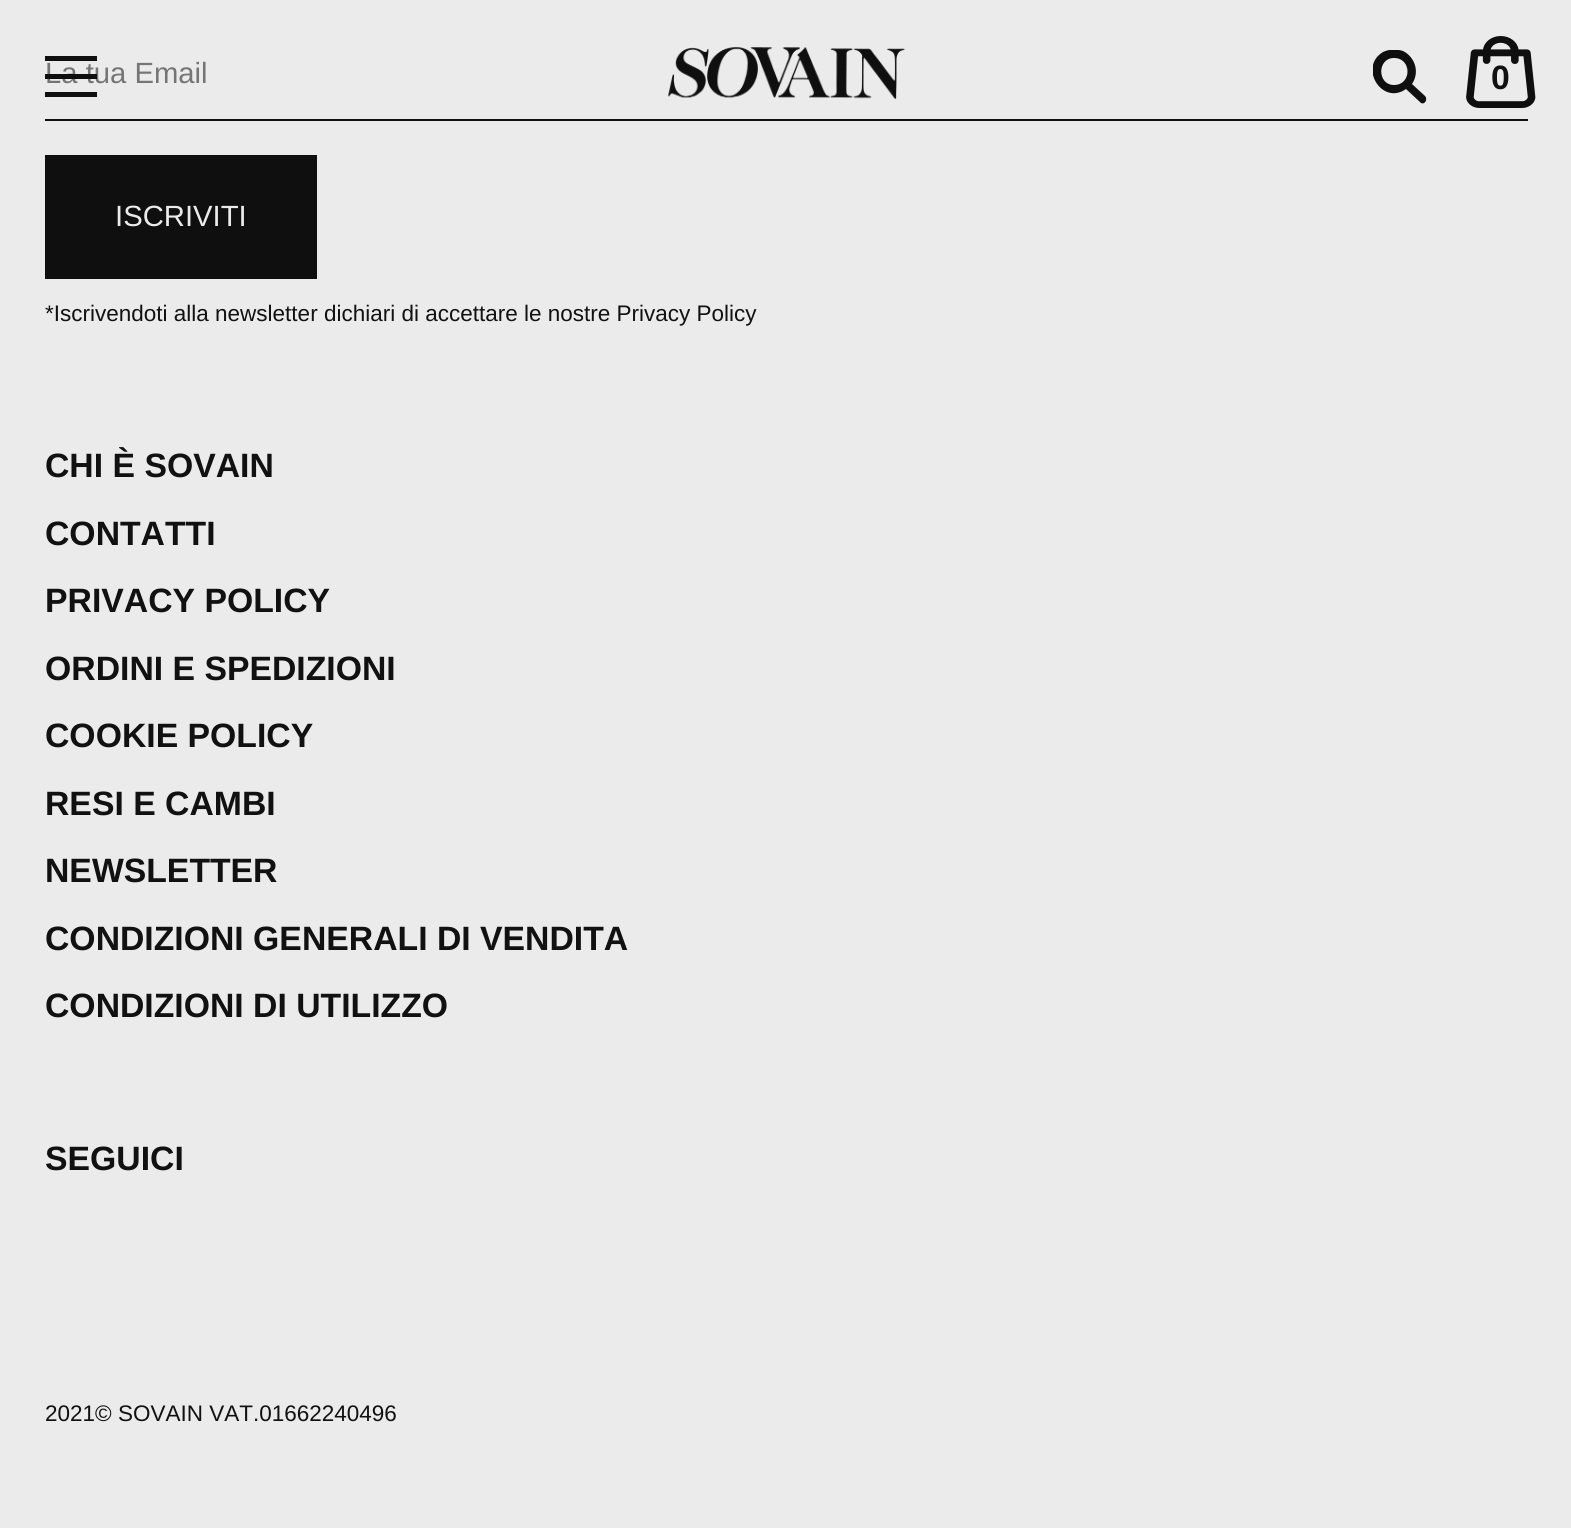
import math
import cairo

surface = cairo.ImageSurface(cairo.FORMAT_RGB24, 1571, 1528)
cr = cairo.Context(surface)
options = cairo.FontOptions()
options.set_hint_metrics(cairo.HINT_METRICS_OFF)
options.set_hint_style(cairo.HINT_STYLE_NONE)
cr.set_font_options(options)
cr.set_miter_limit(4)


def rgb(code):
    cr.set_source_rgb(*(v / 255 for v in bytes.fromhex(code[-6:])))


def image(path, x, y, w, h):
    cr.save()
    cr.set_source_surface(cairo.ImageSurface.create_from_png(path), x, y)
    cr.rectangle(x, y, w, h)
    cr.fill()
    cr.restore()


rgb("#ebebeb")
cr.paint()
for x, y, w, h, color in [
    (45, 119, 1483, 2, "#0f0f0f"),
    (45, 155, 272, 124, "#0f0f0f"),
    (45, 56, 52, 5, "#0f0f0f"),
    (45, 92, 52, 5, "#0f0f0f"),
]:
    rgb(color)
    cr.rectangle(x, y, w, h)
    cr.fill()
image("img/1.png", 668, 47, 237, 52)
cr.save()
cr.rectangle(1373, 50, 54, 54)
cr.clip()
cr.new_path()
cr.move_to(1425, 96)
cr.line_to(1412, 84)
cr.curve_to(1420, 72, 1415, 57, 1403, 51)
cr.curve_to(1397, 49, 1389, 49, 1383, 52)
cr.curve_to(1358, 67, 1382, 106, 1406, 89)
cr.line_to(1421, 103)
cr.curve_to(1425, 105, 1428, 99, 1425, 96)
cr.close_path()
cr.move_to(1394, 58)
cr.curve_to(1412, 58, 1412, 85, 1394, 85)
cr.curve_to(1377, 85, 1377, 58, 1394, 58)
cr.close_path()
cr.fill()
cr.restore()
image("img/2.png", 1466, 36, 70, 72)
cr.select_font_face("Liberation Sans")
cr.set_font_size(29.25)
rgb("#757575")
cr.move_to(45, 83)
cr.show_text("La tua Email")
rgb("#ebebeb")
cr.move_to(115, 226)
cr.show_text("ISCRIVITI")
cr.set_font_size(22.5)
rgb("#111111")
cr.move_to(45, 321)
cr.show_text("*Iscrivendoti alla newsletter dichiari di accettare le nostre Privacy Policy")
cr.select_font_face("Liberation Sans", cairo.FONT_SLANT_NORMAL, cairo.FONT_WEIGHT_BOLD)
cr.set_font_size(33.75)
for x, y, s in [
    (45, 477, "CHI È SOVAIN"),
    (45, 545, "CONTATTI"),
    (45, 612, "PRIVACY POLICY"),
    (45, 680, "ORDINI E SPEDIZIONI"),
    (45, 747, "COOKIE POLICY"),
    (45, 815, "RESI E CAMBI"),
    (45, 882, "NEWSLETTER"),
    (45, 950, "CONDIZIONI GENERALI DI VENDITA"),
    (45, 1017, "CONDIZIONI DI UTILIZZO"),
    (45, 1170, "SEGUICI"),
]:
    cr.move_to(x, y)
    cr.show_text(s)
cr.select_font_face("Liberation Sans")
cr.set_font_size(22.5)
cr.move_to(45, 1421)
cr.show_text("2021© SOVAIN VAT.01662240496")
rgb("#0f0f0f")
cr.rectangle(45, 74, 52, 5)
cr.fill()
cr.select_font_face("Liberation Sans", cairo.FONT_SLANT_NORMAL, cairo.FONT_WEIGHT_BOLD)
cr.set_font_size(33.75)
rgb("#111111")
cr.move_to(1491, 89)
cr.show_text("0")
surface.write_to_png("page.png")
